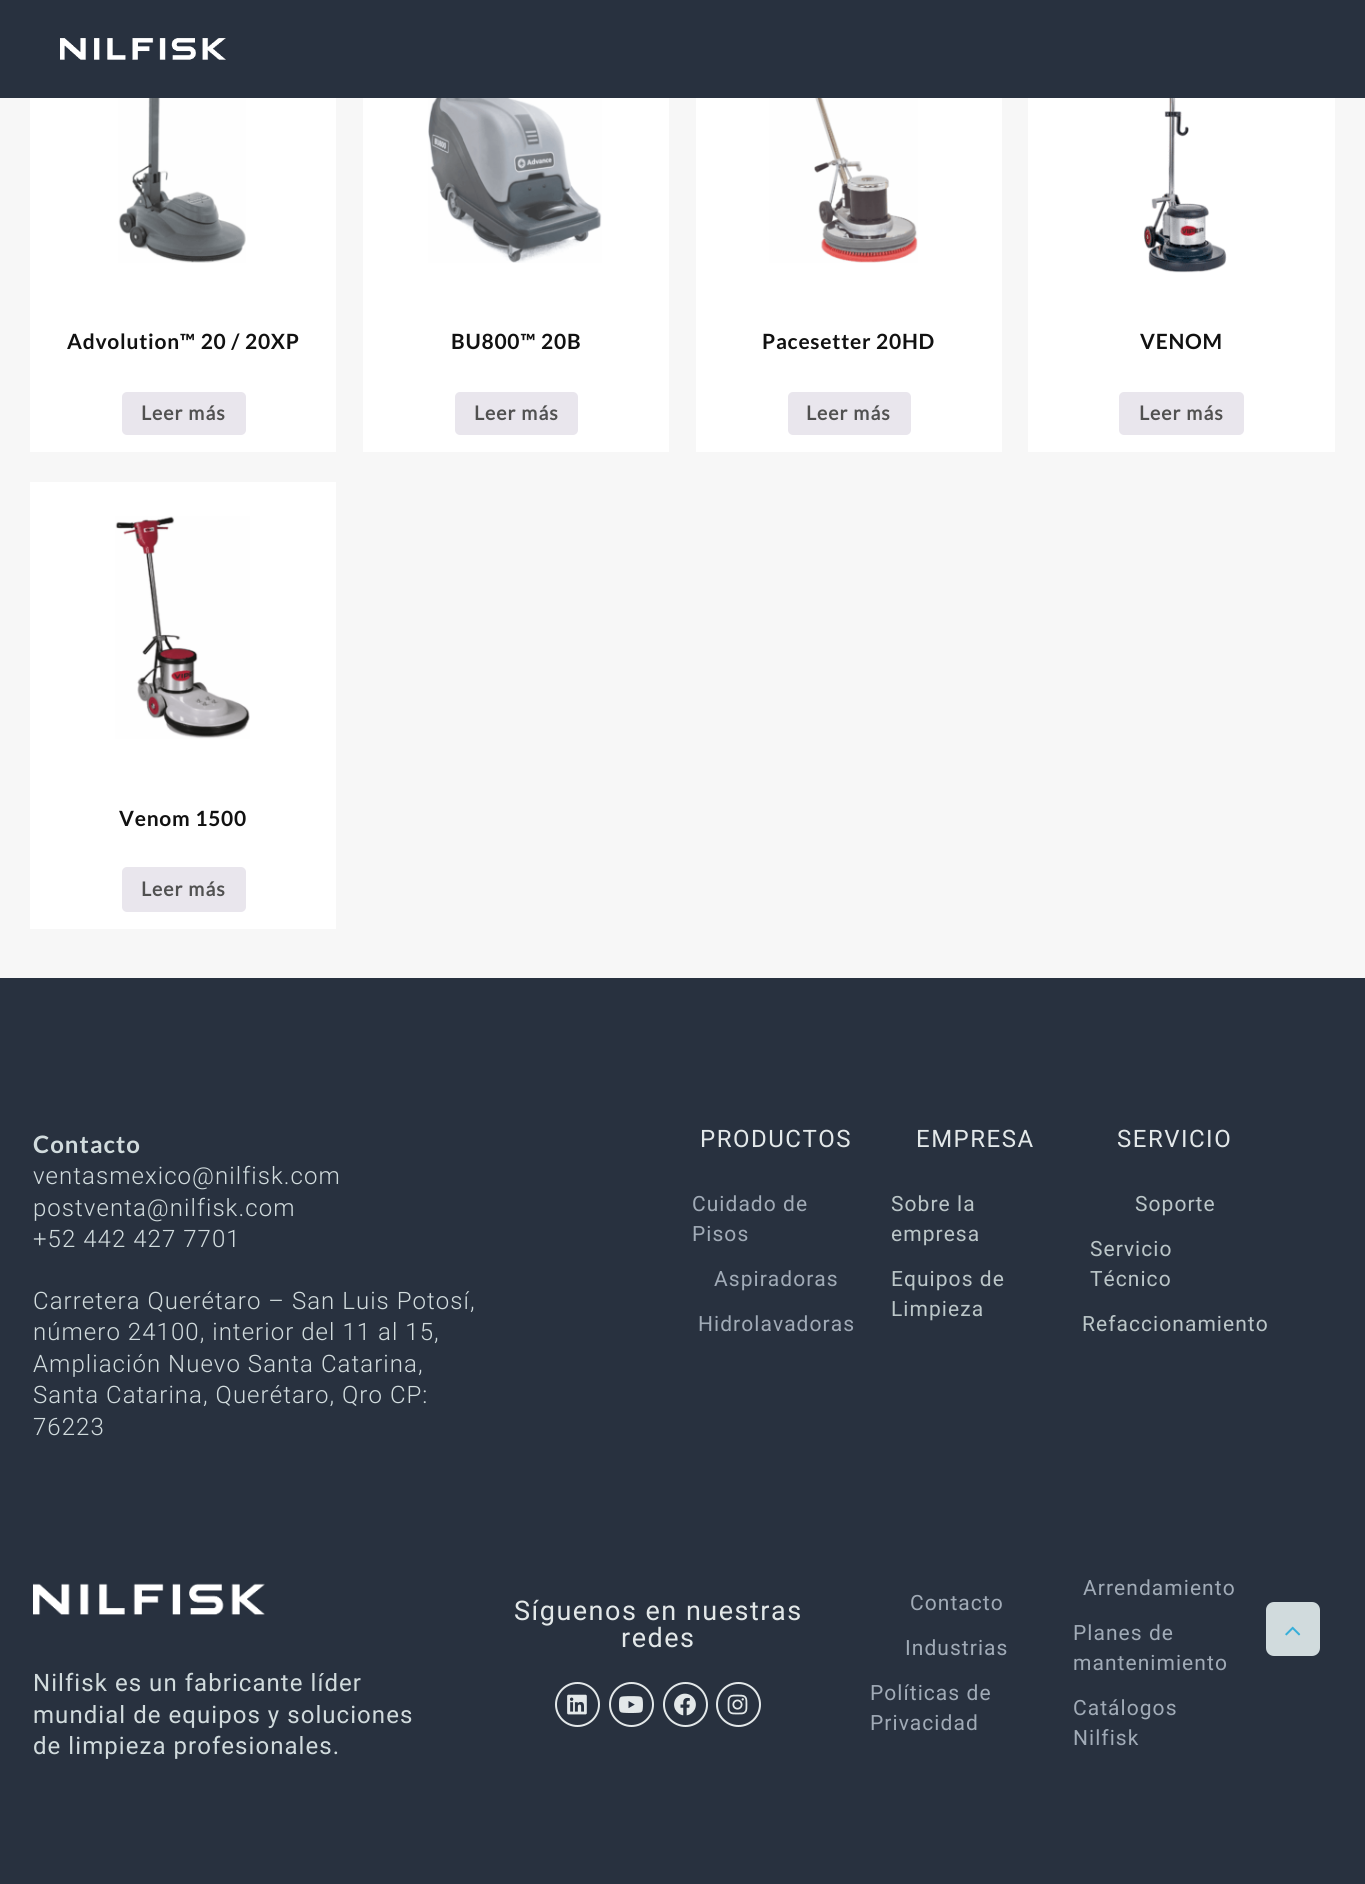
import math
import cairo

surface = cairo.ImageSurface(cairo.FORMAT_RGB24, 1365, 1884)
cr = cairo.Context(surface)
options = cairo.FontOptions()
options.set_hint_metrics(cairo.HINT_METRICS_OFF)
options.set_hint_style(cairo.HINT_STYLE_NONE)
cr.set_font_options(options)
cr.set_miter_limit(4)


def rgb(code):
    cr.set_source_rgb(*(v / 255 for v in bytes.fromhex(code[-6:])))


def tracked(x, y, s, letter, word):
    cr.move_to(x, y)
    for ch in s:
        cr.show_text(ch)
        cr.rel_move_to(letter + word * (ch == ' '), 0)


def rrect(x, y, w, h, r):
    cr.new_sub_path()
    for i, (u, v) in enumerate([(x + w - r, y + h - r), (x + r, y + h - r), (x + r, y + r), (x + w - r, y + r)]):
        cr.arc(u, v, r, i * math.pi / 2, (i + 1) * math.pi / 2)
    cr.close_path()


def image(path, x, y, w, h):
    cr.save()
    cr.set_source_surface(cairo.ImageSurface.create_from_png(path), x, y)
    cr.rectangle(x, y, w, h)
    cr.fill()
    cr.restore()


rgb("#f7f7f7")
cr.paint()
rgb("#28313f")
cr.rectangle(0, 0, 1365, 98)
cr.fill()
image("img/1.png", 60, 38, 166, 22)
rgb("#ffffff")
cr.rectangle(30, 98, 306, 354)
cr.fill()
image("img/2.png", 118, 98, 128, 165)
rgb("#e9e6ed")
rrect(122, 392, 124, 43, 5)
cr.fill()
rgb("#ffffff")
cr.rectangle(363, 98, 306, 354)
cr.fill()
image("img/3.png", 428, 98, 174, 165)
rgb("#e9e6ed")
rrect(455, 392, 123, 43, 5)
cr.fill()
rgb("#ffffff")
cr.rectangle(696, 98, 306, 354)
cr.fill()
image("img/4.png", 769, 98, 149, 165)
rgb("#e9e6ed")
rrect(788, 392, 123, 43, 5)
cr.fill()
rgb("#ffffff")
cr.rectangle(1028, 98, 307, 354)
cr.fill()
image("img/5.png", 1135, 98, 92, 175)
rgb("#e9e6ed")
rrect(1119, 392, 125, 43, 5)
cr.fill()
rgb("#ffffff")
cr.rectangle(30, 482, 306, 447)
cr.fill()
image("img/6.png", 115, 516, 135, 223)
rgb("#e9e6ed")
rrect(122, 867, 124, 45, 5)
cr.fill()
rgb("#28313f")
cr.rectangle(0, 978, 1365, 906)
cr.fill()
cr.arc(577.5, 1704.5, 21.5, 0, 2 * math.pi)
rgb("#e3e8e9")
cr.stroke()
image("img/7.png", 567, 1694, 20, 21)
cr.arc(631.5, 1704.5, 21.5, 0, 2 * math.pi)
cr.stroke()
image("img/8.png", 619, 1696, 24, 17)
cr.arc(685.5, 1704.5, 21.5, 0, 2 * math.pi)
cr.stroke()
image("img/9.png", 674, 1693, 22, 23)
cr.arc(738.5, 1704.5, 21.5, 0, 2 * math.pi)
cr.stroke()
image("img/10.png", 727, 1694, 21, 21)
image("img/11.png", 33, 1583, 232, 32)
rgb("#d1dbdd")
rrect(1266, 1602, 54, 54, 8)
cr.fill()
image("img/12.png", 1285, 1626, 16, 10)
cr.select_font_face("Lato", cairo.FONT_SLANT_NORMAL, cairo.FONT_WEIGHT_BOLD)
cr.set_font_size(21)
rgb("#111111")
tracked(67, 349, "Advolution™ 20 / 20XP", 0.75, 0)
cr.select_font_face("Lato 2", cairo.FONT_SLANT_NORMAL, cairo.FONT_WEIGHT_BOLD)
cr.set_font_size(19.5)
rgb("#515151")
tracked(141, 420, "Leer más", 1.05, 0)
cr.select_font_face("Lato", cairo.FONT_SLANT_NORMAL, cairo.FONT_WEIGHT_BOLD)
cr.set_font_size(21)
rgb("#111111")
tracked(451, 349, "BU800™ 20B", 0.75, 0)
cr.select_font_face("Lato 2", cairo.FONT_SLANT_NORMAL, cairo.FONT_WEIGHT_BOLD)
cr.set_font_size(19.5)
rgb("#515151")
tracked(474, 420, "Leer más", 1.05, 0)
cr.select_font_face("Lato", cairo.FONT_SLANT_NORMAL, cairo.FONT_WEIGHT_BOLD)
cr.set_font_size(21)
rgb("#111111")
tracked(762, 349, "Pacesetter 20HD", 0.75, 0)
cr.select_font_face("Lato 2", cairo.FONT_SLANT_NORMAL, cairo.FONT_WEIGHT_BOLD)
cr.set_font_size(19.5)
rgb("#515151")
tracked(806, 420, "Leer más", 1.05, 0)
cr.select_font_face("Lato", cairo.FONT_SLANT_NORMAL, cairo.FONT_WEIGHT_BOLD)
cr.set_font_size(21)
rgb("#111111")
tracked(1140, 349, "VENOM", 0.75, 0)
cr.select_font_face("Lato 2", cairo.FONT_SLANT_NORMAL, cairo.FONT_WEIGHT_BOLD)
cr.set_font_size(19.5)
rgb("#515151")
tracked(1139, 420, "Leer más", 1.05, 0)
cr.select_font_face("Lato", cairo.FONT_SLANT_NORMAL, cairo.FONT_WEIGHT_BOLD)
cr.set_font_size(21)
rgb("#111111")
tracked(119, 826, "Venom 1500", 0.75, 0)
cr.select_font_face("Lato 2", cairo.FONT_SLANT_NORMAL, cairo.FONT_WEIGHT_BOLD)
cr.set_font_size(19.5)
rgb("#515151")
tracked(141, 896, "Leer más", 1.05, 0)
cr.select_font_face("Lato", cairo.FONT_SLANT_NORMAL, cairo.FONT_WEIGHT_BOLD)
cr.set_font_size(24)
rgb("#d1dbdd")
tracked(33, 1153, "Contacto", 1.05, 0)
cr.select_font_face("Roboto Light")
for x, y, s in [
    (33, 1184, "ventasmexico@nilfisk.com"),
    (33, 1216, "postventa@nilfisk.com"),
    (33, 1247, "+52 442 427 7701"),
    (33, 1309, "Carretera Querétaro – San Luis Potosí,"),
    (33, 1340, "número 24100, interior del 11 al 15,"),
    (33, 1372, "Ampliación Nuevo Santa Catarina,"),
    (33, 1403, "Santa Catarina, Querétaro, Qro CP:"),
    (33, 1435, "76223"),
]:
    tracked(x, y, s, 1.05, 0)
cr.select_font_face("Roboto")
rgb("#e3e8e9")
tracked(700, 1147, "PRODUCTOS", 1.5, 0)
cr.set_font_size(21)
rgb("#a1abb7")
for x, y, s in [
    (692, 1211, "Cuidado de"),
    (692, 1241, "Pisos"),
    (714, 1286, "Aspiradoras"),
    (698, 1331, "Hidrolavadoras"),
]:
    tracked(x, y, s, 1.05, 0)
cr.set_font_size(24)
rgb("#e3e8e9")
tracked(916, 1147, "EMPRESA", 1.5, 0)
cr.set_font_size(21)
rgb("#bbc6c8")
for x, y, s in [
    (891, 1211, "Sobre la"),
    (891, 1241, "empresa"),
    (891, 1286, "Equipos de"),
    (891, 1316, "Limpieza"),
]:
    tracked(x, y, s, 1.05, 0)
cr.set_font_size(24)
rgb("#e3e8e9")
tracked(1117, 1147, "SERVICIO", 1.5, 0)
cr.set_font_size(21)
rgb("#bbc6c8")
for x, y, s in [
    (1135, 1211, "Soporte"),
    (1090, 1256, "Servicio"),
    (1090, 1286, "Técnico"),
    (1082, 1331, "Refaccionamiento"),
]:
    tracked(x, y, s, 1.05, 0)
cr.set_font_size(27)
rgb("#e3e8e9")
tracked(514, 1620, "Síguenos en nuestras", 1.5, 0)
tracked(621, 1647, "redes", 1.5, 0)
cr.set_font_size(21)
rgb("#a1abb7")
for x, y, s in [
    (910, 1610, "Contacto"),
    (905, 1655, "Industrias"),
    (870, 1700, "Políticas de"),
    (870, 1730, "Privacidad"),
    (1083, 1595, "Arrendamiento"),
    (1073, 1640, "Planes de"),
    (1073, 1670, "mantenimiento"),
    (1073, 1715, "Catálogos"),
    (1073, 1745, "Nilfisk"),
]:
    tracked(x, y, s, 1.05, 0)
cr.set_font_size(24)
rgb("#d1dbdd")
for x, y, s in [
    (33, 1691, "Nilfisk es un fabricante líder"),
    (33, 1723, "mundial de equipos y soluciones"),
    (33, 1754, "de limpieza profesionales."),
]:
    tracked(x, y, s, 1.05, 0)
surface.write_to_png("page.png")
